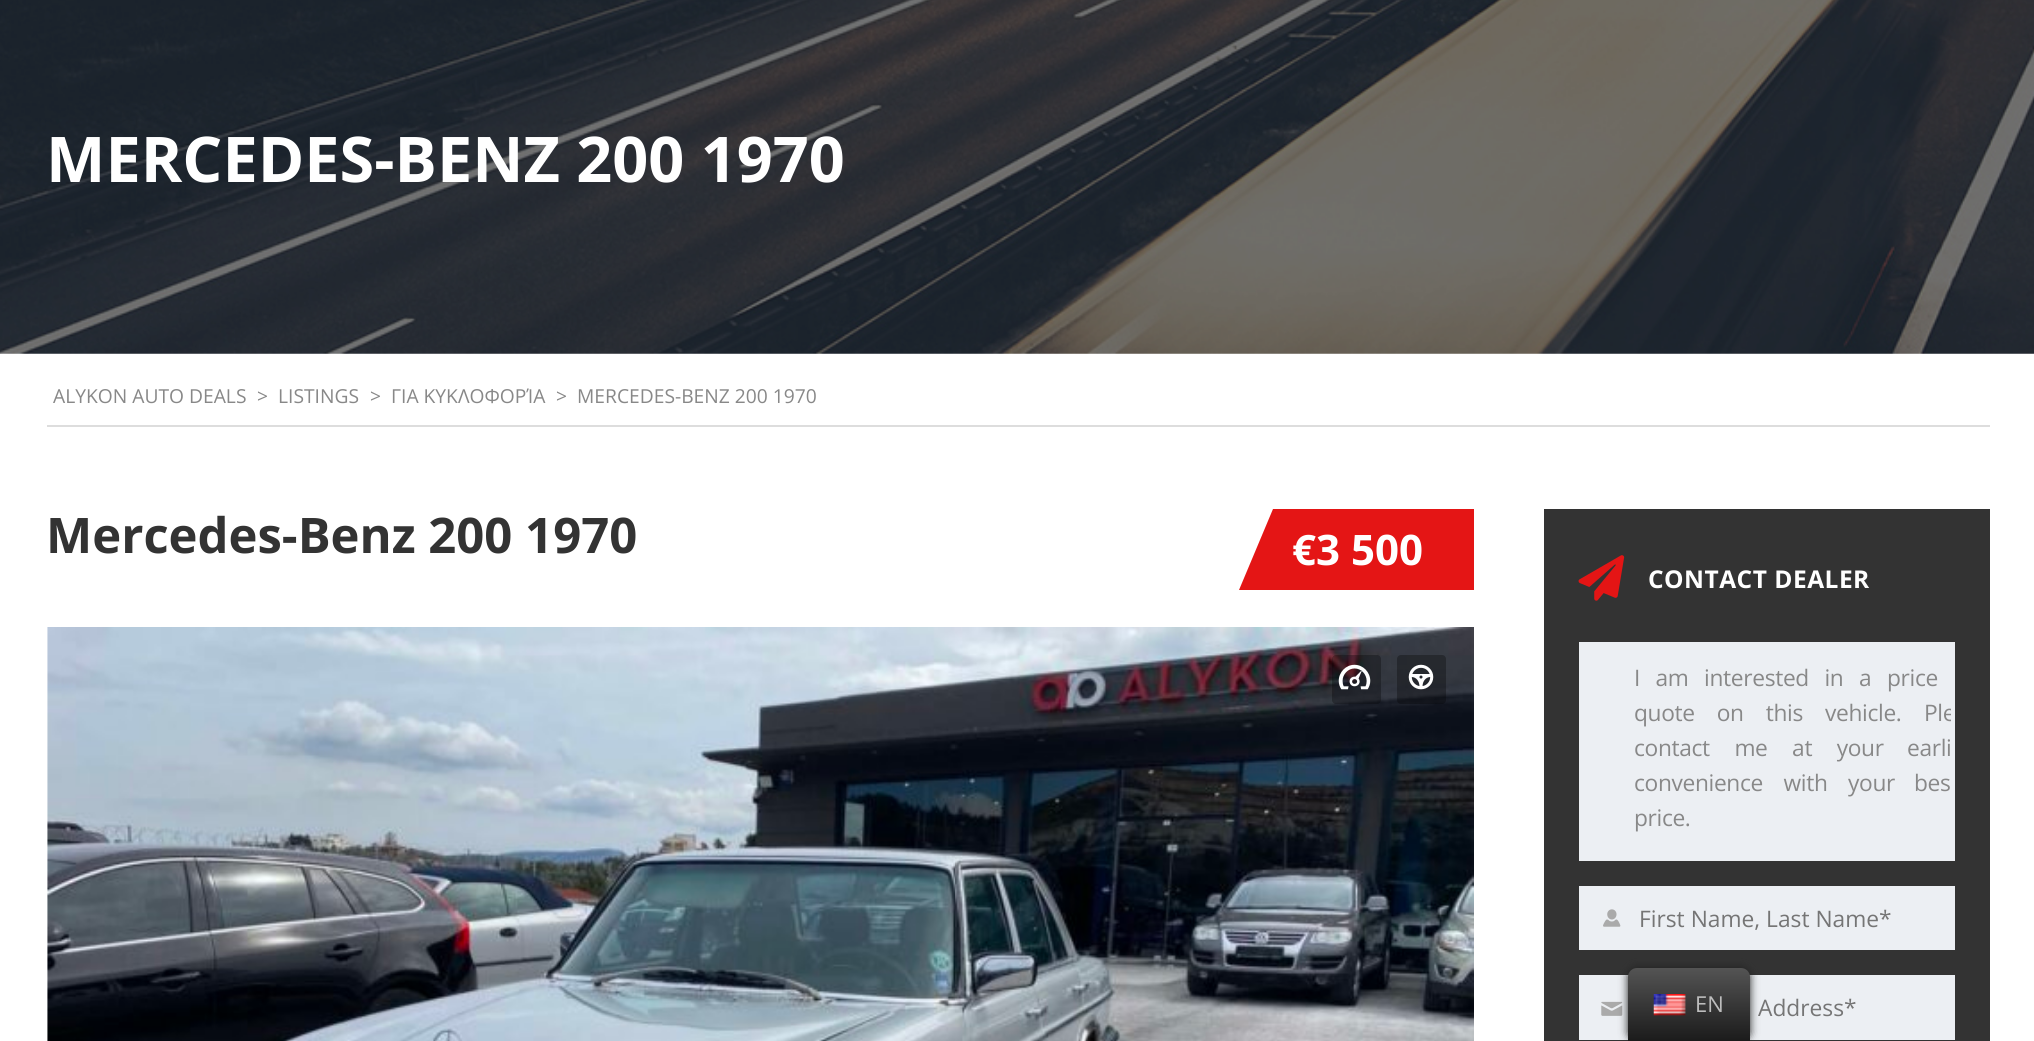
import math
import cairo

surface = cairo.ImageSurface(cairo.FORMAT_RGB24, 2034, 1041)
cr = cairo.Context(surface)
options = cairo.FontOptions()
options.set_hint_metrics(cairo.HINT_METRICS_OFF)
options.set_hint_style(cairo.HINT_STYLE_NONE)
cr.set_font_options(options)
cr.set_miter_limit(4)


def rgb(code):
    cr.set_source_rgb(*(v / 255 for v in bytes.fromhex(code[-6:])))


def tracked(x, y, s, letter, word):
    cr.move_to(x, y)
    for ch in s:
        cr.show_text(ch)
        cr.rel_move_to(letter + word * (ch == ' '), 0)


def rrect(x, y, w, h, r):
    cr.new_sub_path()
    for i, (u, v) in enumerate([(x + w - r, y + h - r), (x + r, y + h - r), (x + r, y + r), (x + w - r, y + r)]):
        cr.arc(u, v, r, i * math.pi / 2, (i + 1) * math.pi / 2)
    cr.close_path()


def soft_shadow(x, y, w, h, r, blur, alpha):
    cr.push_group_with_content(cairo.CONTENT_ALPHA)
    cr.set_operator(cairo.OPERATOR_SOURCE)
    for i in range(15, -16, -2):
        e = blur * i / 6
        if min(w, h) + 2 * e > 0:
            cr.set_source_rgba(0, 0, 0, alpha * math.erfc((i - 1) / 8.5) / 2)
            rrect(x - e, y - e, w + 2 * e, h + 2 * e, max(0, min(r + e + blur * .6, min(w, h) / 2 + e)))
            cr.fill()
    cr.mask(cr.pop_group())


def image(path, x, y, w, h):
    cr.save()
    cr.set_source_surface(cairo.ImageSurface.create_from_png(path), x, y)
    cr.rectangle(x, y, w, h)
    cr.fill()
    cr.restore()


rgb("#ffffff")
cr.paint()
image("img/1.png", 0, 0, 2034, 354)
rgb("#dddddd")
cr.rectangle(47, 425, 1943, 2)
cr.fill()
rgb("#e41515")
cr.new_path()
cr.move_to(1273, 509)
cr.line_to(1329, 509)
cr.line_to(1295, 590)
cr.line_to(1239, 590)
cr.close_path()
cr.fill()
cr.rectangle(1295, 509, 179, 81)
cr.fill()
image("img/2.png", 47, 627, 1427, 414)
cr.set_source_rgba(0, 0, 0, 0.3)
rrect(1332, 655, 49, 49, 4)
cr.fill()
image("img/3.png", 1338, 664, 33, 26)
rrect(1397, 655, 49, 49, 4)
cr.fill()
image("img/4.png", 1408, 664, 26, 26)
rgb("#333333")
cr.rectangle(1544, 509, 446, 532)
cr.fill()
image("img/5.png", 1578, 555, 47, 46)
rgb("#eceff3")
cr.rectangle(1579, 642, 376, 219)
cr.fill()
cr.rectangle(1579, 886, 376, 64)
cr.fill()
image("img/6.png", 1603, 909, 18, 18)
cr.rectangle(1579, 975, 376, 65)
cr.fill()
image("img/7.png", 1601, 1001, 22, 15)
rgb("#212121")
soft_shadow(1628, 968, 122, 73, 9, 4.5, 1)
gradient = cairo.LinearGradient(1689, 1041, 1689, 968)
gradient.add_color_stop_rgba(0, 0.106, 0.106, 0.106, 1)
gradient.add_color_stop_rgba(1, 0.329, 0.329, 0.329, 1)
cr.set_source(gradient)
cr.new_path()
cr.move_to(1637, 968)
cr.line_to(1741, 968)
cr.curve_to(1746, 968, 1750, 972, 1750, 977)
cr.line_to(1750, 1041)
cr.line_to(1628, 1041)
cr.line_to(1628, 977)
cr.curve_to(1628, 972, 1632, 968, 1637, 968)
cr.close_path()
cr.fill()
image("img/8.png", 1653, 994, 33, 22)
cr.select_font_face("Open Sans", cairo.FONT_SLANT_NORMAL, cairo.FONT_WEIGHT_BOLD)
cr.set_font_size(63)
rgb("#ffffff")
cr.move_to(46, 182)
cr.show_text("MERCEDES-BENZ 200 1970")
cr.select_font_face("Open Sans")
cr.set_font_size(19.25)
rgb("#888888")
for x, y, s in [
    (53, 403, "ALYKON AUTO DEALS"),
    (257, 403, ">"),
    (278, 403, "LISTINGS"),
    (370, 403, ">"),
    (391, 403, "ΓΙΑ ΚΥΚΛΟΦΟΡΊΑ"),
    (556, 403, ">"),
    (577, 403, "MERCEDES-BENZ 200 1970"),
]:
    cr.move_to(x, y)
    cr.show_text(s)
cr.select_font_face("Open Sans", cairo.FONT_SLANT_NORMAL, cairo.FONT_WEIGHT_BOLD)
cr.set_font_size(49)
rgb("#333333")
cr.move_to(46, 553)
cr.show_text("Mercedes-Benz 200 1970")
cr.set_font_size(42)
rgb("#ffffff")
cr.move_to(1292, 565)
cr.show_text("€3 500")
cr.set_font_size(24.5)
tracked(1648, 588, "CONTACT DEALER", 0.5, 0)
cr.select_font_face("Open Sans")
cr.set_font_size(22.75)
rgb("#888888")
tracked(1634, 686, "I am interested in a", -0.35, 10)
tracked(1887, 686, "price", -0.35, 0)
tracked(1634, 721, "quote on this vehicle.", -0.35, 16.5)
cr.save()
cr.rectangle(1582, 646, 369, 212)
cr.clip()
tracked(1924, 721, "Ple", -0.35, 0)
cr.restore()
tracked(1634, 756, "contact me at your", -0.35, 19)
tracked(1907, 756, "earli", -0.35, 0)
tracked(1634, 791, "convenience with your", -0.35, 15)
tracked(1914, 791, "bes", -0.35, 0)
tracked(1634, 826, "price.", -0.35, 0)
rgb("#757575")
cr.move_to(1639, 927)
cr.show_text("First Name, Last Name*")
cr.move_to(1758, 1016)
cr.show_text("Address*")
cr.set_font_size(22)
rgb("#bdbdbd")
cr.move_to(1695, 1012)
cr.show_text("EN")
surface.write_to_png("page.png")
